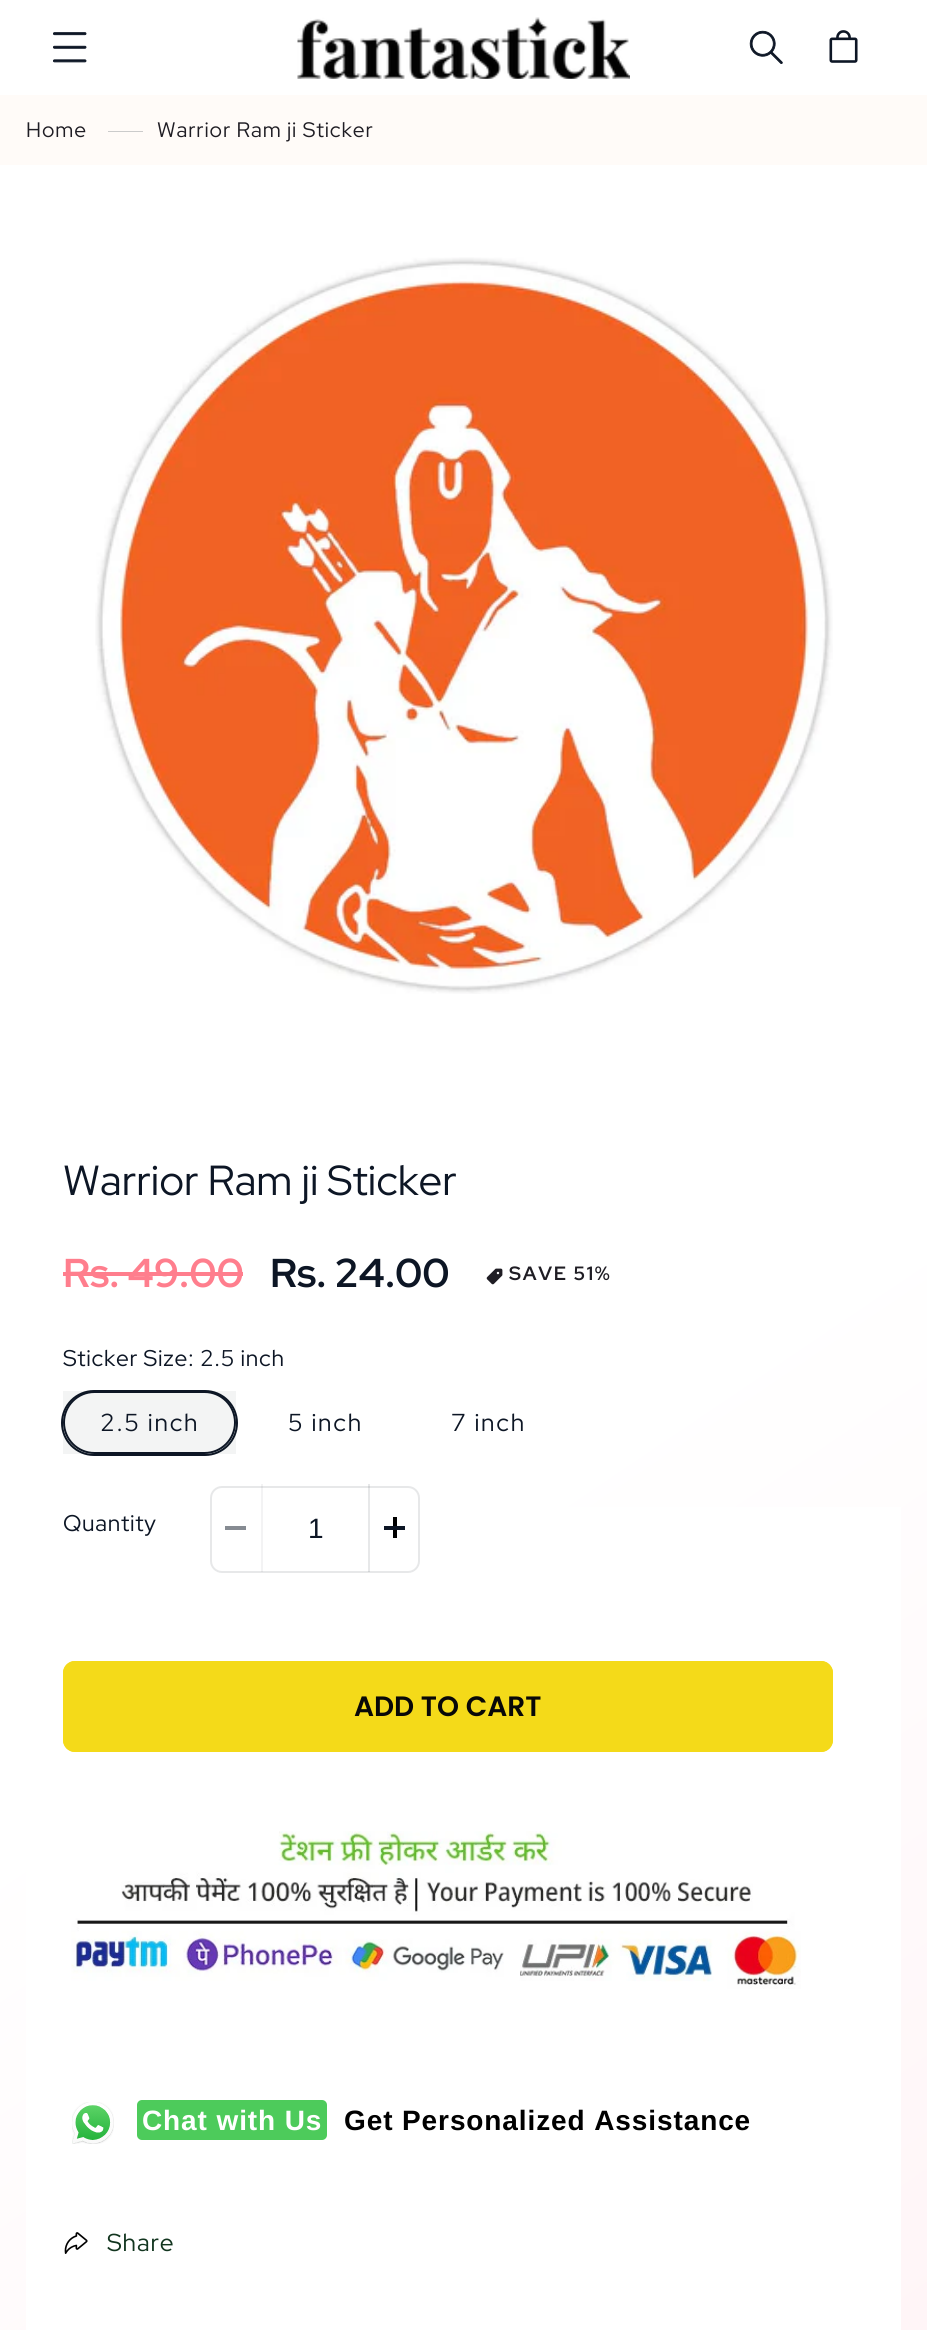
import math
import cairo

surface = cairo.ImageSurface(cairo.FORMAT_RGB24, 927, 2330)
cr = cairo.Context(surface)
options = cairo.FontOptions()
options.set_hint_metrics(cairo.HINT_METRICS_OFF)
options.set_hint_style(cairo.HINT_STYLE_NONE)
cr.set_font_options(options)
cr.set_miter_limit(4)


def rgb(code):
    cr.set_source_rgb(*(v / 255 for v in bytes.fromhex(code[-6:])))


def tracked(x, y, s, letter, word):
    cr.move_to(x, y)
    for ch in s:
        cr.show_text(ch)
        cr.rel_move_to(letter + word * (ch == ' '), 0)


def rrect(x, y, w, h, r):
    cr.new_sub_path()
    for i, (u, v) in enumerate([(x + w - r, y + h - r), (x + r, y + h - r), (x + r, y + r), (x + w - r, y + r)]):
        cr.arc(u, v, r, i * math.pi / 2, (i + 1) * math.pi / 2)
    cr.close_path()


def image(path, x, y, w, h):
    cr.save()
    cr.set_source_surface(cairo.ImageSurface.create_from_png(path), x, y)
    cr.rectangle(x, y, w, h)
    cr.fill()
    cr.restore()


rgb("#fffbf8")
cr.paint()
gradient = cairo.LinearGradient(-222, 149, 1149, 2182)
gradient.add_color_stop_rgba(0.62, 1, 1, 1, 1)
gradient.add_color_stop_rgba(1, 1, 0.961, 0.969, 1)
cr.set_source(gradient)
cr.rectangle(0, 0, 927, 95)
cr.fill()
image("img/1.png", 53, 32, 34, 31)
image("img/2.png", 297, 17, 333, 62)
image("img/3.png", 749, 30, 34, 34)
image("img/4.png", 829, 30, 29, 33)
rgb("#cbcbcb")
cr.rectangle(108, 131, 35, 1)
cr.fill()
gradient = cairo.LinearGradient(-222, 149, 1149, 2182)
gradient.add_color_stop_rgba(0.62, 1, 1, 1, 1)
gradient.add_color_stop_rgba(1, 1, 0.961, 0.969, 1)
cr.set_source(gradient)
cr.rectangle(0, 165, 927, 2165)
cr.fill()
image("img/5.png", 95, 257, 738, 737)
rgb("#ffffff")
cr.rectangle(26, 1507, 875, 823)
cr.fill()
rgb("#ff7e8d")
cr.rectangle(63, 1272, 180, 4)
cr.fill()
image("img/6.png", 486, 1268, 17, 17)
rrect(62, 1391, 175, 64, 32)
rgb("#0d1625")
cr.stroke()
cr.set_source_rgba(0.051, 0.086, 0.145, 0.05)
cr.rectangle(63, 1391, 173, 63)
cr.fill()
rrect(64, 1392, 171, 61, 30.5)
rgb("#0d1625")
cr.stroke()
for x, y, w, h, color in [
    (261, 1484, 2, 88, "#f3f3f4"),
    (225, 1526, 21, 4, "#868b92"),
    (368, 1484, 2, 88, "#e7e8e9"),
    (393, 1517, 4, 21, "#000000"),
    (384, 1526, 21, 4, "#0d1625"),
]:
    rgb(color)
    cr.rectangle(x, y, w, h)
    cr.fill()
rrect(211, 1487, 208, 85, 11)
cr.set_source_rgba(0.051, 0.086, 0.145, 0.1)
cr.stroke()
rgb("#f4da19")
rrect(63, 1661, 770, 91, 12)
cr.fill()
rrect(64, 1662, 768, 89, 11)
cr.stroke()
image("img/7.png", 71, 1831, 730, 158)
image("img/8.png", 72, 2102, 42, 42)
rgb("#4dcb5b")
rrect(137, 2100, 190, 40, 5)
cr.fill()
image("img/9.png", 64, 2232, 24, 22)
cr.select_font_face("Red Hat Display")
cr.set_font_size(21)
rgb("#1f1d24")
tracked(26, 137, "Home", 0.9, 0)
tracked(157, 137, "Warrior Ram ji Sticker", 0.9, 0)
cr.set_font_size(42)
rgb("#0d1625")
cr.move_to(63, 1195)
cr.show_text("Warrior Ram ji Sticker")
cr.select_font_face("Red Hat Display", cairo.FONT_SLANT_NORMAL, cairo.FONT_WEIGHT_BOLD)
cr.set_font_size(40.25)
rgb("#ff7e8d")
cr.move_to(63, 1287)
cr.show_text("Rs. 49.00")
rgb("#0d1625")
cr.move_to(270, 1287)
cr.show_text("Rs. 24.00")
cr.set_font_size(19.25)
rgb("#1f1d24")
tracked(509, 1280, "SAVE 51%", 1.75, 0)
cr.select_font_face("Red Hat Display")
cr.set_font_size(22.75)
rgb("#0d1625")
tracked(63, 1366, "Sticker Size: 2.5 inch", 0.7, 0)
cr.set_font_size(24.5)
for x, y, s in [
    (100, 1431, "2.5 inch"),
    (288, 1431, "5 inch"),
    (451, 1431, "7 inch"),
]:
    tracked(x, y, s, 1.75, 0)
cr.set_font_size(22.75)
tracked(63, 1531, "Quantity", 0.7, 0)
cr.select_font_face("Liberation Sans")
cr.set_font_size(28)
cr.move_to(308, 1538)
cr.show_text("1")
cr.select_font_face("Poppins SemiBold")
rgb("#080808")
cr.move_to(354, 1716)
cr.show_text("ADD TO CART")
cr.select_font_face("Liberation Sans", cairo.FONT_SLANT_NORMAL, cairo.FONT_WEIGHT_BOLD)
rgb("#ffffff")
tracked(142, 2130, "Chat with Us", 0.9, 0)
rgb("#000000")
tracked(344, 2130, "Get Personalized Assistance", 0.9, 0)
cr.select_font_face("Red Hat Display")
cr.set_font_size(24.5)
rgb("#12351f")
tracked(107, 2251, "Share", 0.9, 0)
surface.write_to_png("page.png")
